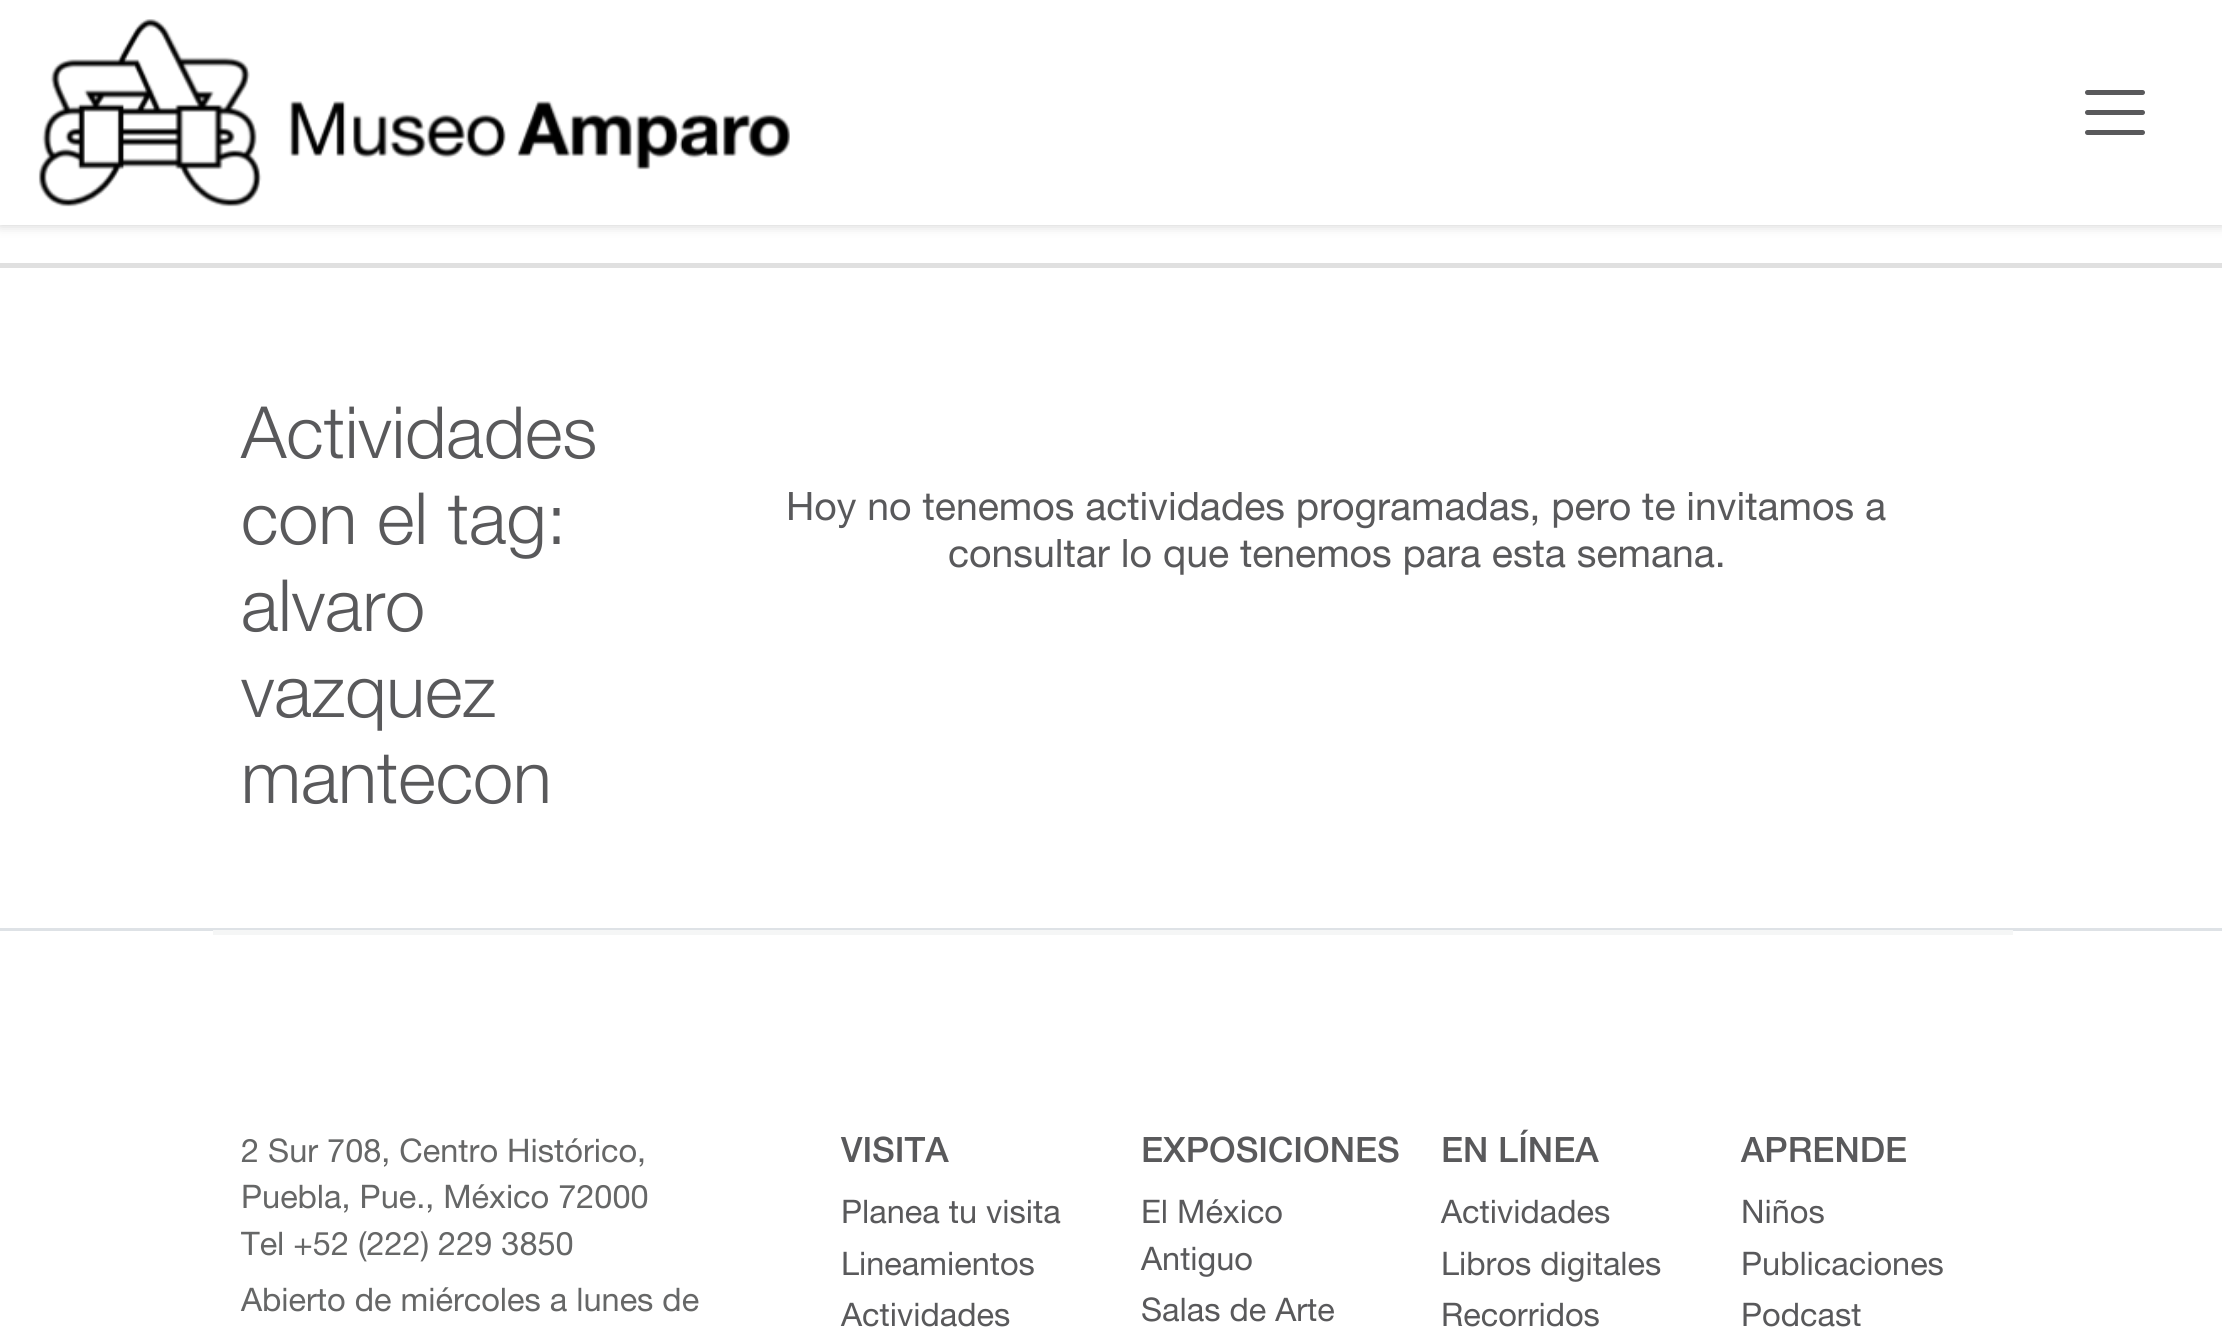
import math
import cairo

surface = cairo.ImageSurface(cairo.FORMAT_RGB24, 2222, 1342)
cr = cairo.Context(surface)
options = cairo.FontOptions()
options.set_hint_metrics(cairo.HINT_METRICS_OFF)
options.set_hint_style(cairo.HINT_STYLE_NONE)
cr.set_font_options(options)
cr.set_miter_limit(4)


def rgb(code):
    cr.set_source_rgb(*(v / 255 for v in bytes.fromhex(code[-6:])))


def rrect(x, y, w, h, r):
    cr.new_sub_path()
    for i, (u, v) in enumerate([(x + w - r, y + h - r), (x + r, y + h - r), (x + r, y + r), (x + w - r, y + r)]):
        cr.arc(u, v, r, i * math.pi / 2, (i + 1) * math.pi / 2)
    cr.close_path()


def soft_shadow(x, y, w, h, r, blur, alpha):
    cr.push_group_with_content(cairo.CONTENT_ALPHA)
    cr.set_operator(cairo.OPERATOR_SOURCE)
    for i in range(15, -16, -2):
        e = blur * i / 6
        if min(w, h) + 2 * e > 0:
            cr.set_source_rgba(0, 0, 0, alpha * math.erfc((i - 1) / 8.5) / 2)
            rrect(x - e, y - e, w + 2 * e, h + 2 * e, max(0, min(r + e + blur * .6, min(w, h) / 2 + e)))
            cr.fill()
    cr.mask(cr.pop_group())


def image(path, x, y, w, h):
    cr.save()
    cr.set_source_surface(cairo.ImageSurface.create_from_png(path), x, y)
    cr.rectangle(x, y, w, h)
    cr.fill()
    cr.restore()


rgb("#ffffff")
cr.paint()
rgb("#000000")
soft_shadow(0, 0, 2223, 225, 0, 6, 0.2)
rgb("#ffffff")
cr.rectangle(0, 0, 2222, 225)
cr.fill()
image("img/1.png", 38, 19, 752, 188)
cr.new_path()
cr.move_to(2087.5, 92.5)
cr.line_to(2142.5, 92.5)
cr.move_to(2087.5, 112.5)
cr.line_to(2142.5, 112.5)
cr.move_to(2087.5, 132.5)
cr.line_to(2142.5, 132.5)
rgb("#59595b")
cr.set_line_width(5)
cr.set_line_cap(cairo.LINE_CAP_ROUND)
cr.stroke()
for x, y, w, h, color in [
    (0, 263, 2222, 5, "#e0e0e0"),
    (0, 928, 2222, 3, "#dee2e6"),
    (213, 930, 1800, 5, "#f5f6f6"),
]:
    rgb(color)
    cr.rectangle(x, y, w, h)
    cr.fill()
cr.select_font_face("Helvetica Neue Light")
cr.set_font_size(72)
rgb("#59595b")
for x, y, s in [
    (241, 458, "Actividades"),
    (241, 544, "con el tag:"),
    (241, 631, "alvaro"),
    (241, 717, "vazquez"),
    (241, 803, "mantecon"),
]:
    cr.move_to(x, y)
    cr.show_text(s)
cr.select_font_face("Helvetica Neue")
cr.set_font_size(39.2)
cr.move_to(786, 520)
cr.show_text("Hoy no tenemos actividades programadas, pero te invitamos a")
cr.move_to(948, 567)
cr.show_text("consultar lo que tenemos para esta semana.")
cr.set_font_size(32.5)
rgb("#666767")
for x, y, s in [
    (241, 1162, "2 Sur 708, Centro Histórico,"),
    (241, 1208, "Puebla, Pue., México 72000"),
    (241, 1255, "Tel +52 (222) 229 3850"),
    (241, 1311, "Abierto de miércoles a lunes de"),
]:
    cr.move_to(x, y)
    cr.show_text(s)
cr.select_font_face("Helvetica Neue Medium")
cr.set_font_size(35)
rgb("#59595b")
cr.move_to(841, 1162)
cr.show_text("VISITA")
cr.select_font_face("Helvetica Neue")
cr.set_font_size(32.5)
for x, y, s in [
    (841, 1223, "Planea tu visita"),
    (841, 1275, "Lineamientos"),
    (841, 1326, "Actividades"),
]:
    cr.move_to(x, y)
    cr.show_text(s)
cr.select_font_face("Helvetica Neue Medium")
cr.set_font_size(35)
cr.move_to(1141, 1162)
cr.show_text("EXPOSICIONES")
cr.select_font_face("Helvetica Neue")
cr.set_font_size(32.5)
for x, y, s in [
    (1141, 1223, "El México"),
    (1141, 1270, "Antiguo"),
    (1141, 1321, "Salas de Arte"),
]:
    cr.move_to(x, y)
    cr.show_text(s)
cr.select_font_face("Helvetica Neue Medium")
cr.set_font_size(35)
cr.move_to(1441, 1162)
cr.show_text("EN LÍNEA")
cr.select_font_face("Helvetica Neue")
cr.set_font_size(32.5)
for x, y, s in [
    (1441, 1223, "Actividades"),
    (1441, 1275, "Libros digitales"),
    (1441, 1326, "Recorridos"),
]:
    cr.move_to(x, y)
    cr.show_text(s)
cr.select_font_face("Helvetica Neue Medium")
cr.set_font_size(35)
cr.move_to(1741, 1162)
cr.show_text("APRENDE")
cr.select_font_face("Helvetica Neue")
cr.set_font_size(32.5)
for x, y, s in [
    (1741, 1223, "Niños"),
    (1741, 1275, "Publicaciones"),
    (1741, 1326, "Podcast"),
]:
    cr.move_to(x, y)
    cr.show_text(s)
surface.write_to_png("page.png")
